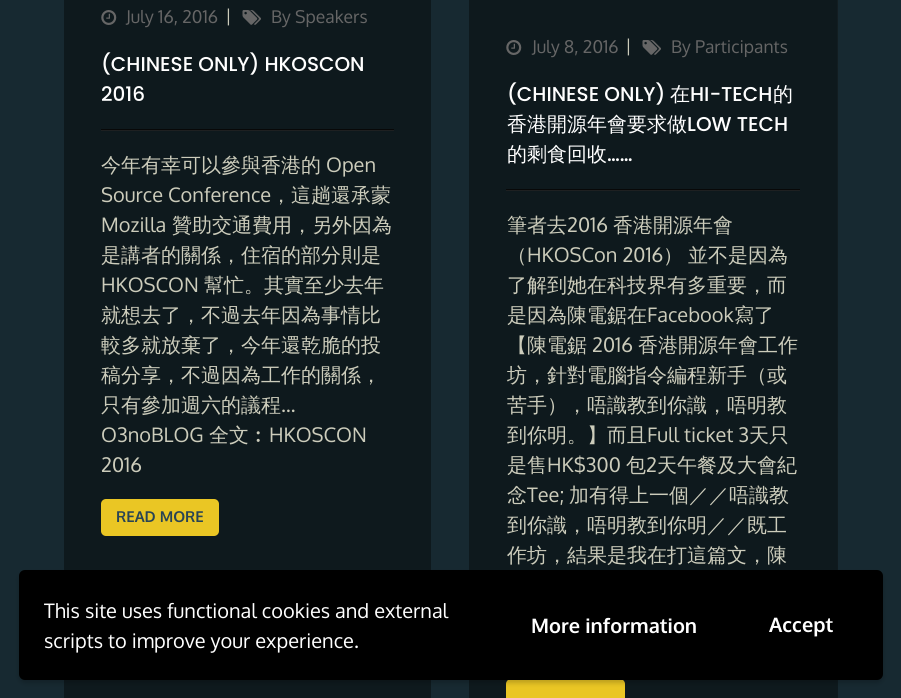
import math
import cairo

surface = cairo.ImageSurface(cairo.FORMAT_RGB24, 901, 698)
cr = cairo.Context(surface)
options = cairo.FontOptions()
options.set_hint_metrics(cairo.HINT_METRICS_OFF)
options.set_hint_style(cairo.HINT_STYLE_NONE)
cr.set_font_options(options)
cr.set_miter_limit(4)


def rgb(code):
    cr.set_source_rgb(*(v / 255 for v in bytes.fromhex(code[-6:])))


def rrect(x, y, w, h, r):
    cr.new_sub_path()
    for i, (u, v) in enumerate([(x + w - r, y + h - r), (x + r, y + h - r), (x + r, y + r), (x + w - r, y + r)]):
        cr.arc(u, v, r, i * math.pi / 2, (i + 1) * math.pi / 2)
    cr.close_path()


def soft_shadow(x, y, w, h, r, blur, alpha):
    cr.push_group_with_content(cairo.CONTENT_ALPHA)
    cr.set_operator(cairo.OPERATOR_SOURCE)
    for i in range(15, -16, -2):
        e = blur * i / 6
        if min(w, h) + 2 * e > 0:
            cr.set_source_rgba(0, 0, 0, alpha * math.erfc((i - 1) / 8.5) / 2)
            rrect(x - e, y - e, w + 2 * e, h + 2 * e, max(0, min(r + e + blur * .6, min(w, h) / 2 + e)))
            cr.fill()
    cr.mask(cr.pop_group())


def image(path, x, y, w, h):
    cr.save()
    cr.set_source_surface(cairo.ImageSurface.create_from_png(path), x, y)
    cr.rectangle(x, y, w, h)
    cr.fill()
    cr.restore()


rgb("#172931")
cr.paint()
rgb("#0e191d")
cr.rectangle(469, 0, 369, 698)
cr.fill()
cr.rectangle(64, 0, 367, 698)
cr.fill()
image("img/1.png", 101, 10, 16, 15)
image("img/2.png", 242, 10, 19, 15)
rgb("#1e2021")
cr.new_path()
cr.move_to(101, 51)
cr.line_to(101, 131)
cr.line_to(394, 131)
cr.line_to(394, 51)
cr.line_to(394, 130)
cr.line_to(101, 130)
cr.close_path()
cr.fill()
rgb("#080808")
cr.rectangle(101, 129, 293, 1)
cr.fill()
rgb("#eac624")
rrect(101, 499, 118, 37, 5)
cr.fill()
rgb("#131e22")
cr.new_path()
cr.move_to(469, 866)
cr.curve_to(471, 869, 474, 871, 477, 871)
cr.line_to(830, 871)
cr.curve_to(834, 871, 838, 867, 838, 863)
cr.line_to(838, -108)
cr.line_to(837, -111)
cr.line_to(838, 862)
cr.curve_to(838, 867, 834, 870, 830, 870)
cr.line_to(476, 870)
cr.curve_to(473, 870, 471, 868, 469, 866)
cr.close_path()
cr.fill()
image("img/3.png", 506, 40, 16, 15)
image("img/4.png", 642, 40, 19, 15)
rgb("#1e2021")
cr.new_path()
cr.move_to(506, 81)
cr.line_to(506, 191)
cr.line_to(800, 191)
cr.line_to(800, 190)
cr.line_to(506, 190)
cr.close_path()
cr.fill()
rgb("#080808")
cr.rectangle(506, 189, 294, 1)
cr.fill()
rgb("#eac624")
rrect(506, 679, 119, 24, 5)
cr.fill()
rgb("#000000")
soft_shadow(19, 573, 864, 110, 6, 2.5, 0.2)
rgb("#000000")
rrect(19, 570, 864, 110, 6)
cr.fill()
cr.select_font_face("Oxygen")
cr.set_font_size(17.5)
rgb("#666666")
cr.move_to(126, 23)
cr.show_text("July 16, 2016")
rgb("#ccccbb")
cr.move_to(225, 22)
cr.show_text("|")
rgb("#666666")
cr.move_to(271, 23)
cr.show_text("By Speakers")
cr.select_font_face("Poppins Medium")
cr.set_font_size(20)
rgb("#ffffff")
cr.move_to(101, 71)
cr.show_text("(CHINESE ONLY) HKOSCON")
cr.move_to(101, 101)
cr.show_text("2016")
cr.select_font_face("WenQuanYi Zen Hei Medium")
rgb("#ccccbb")
cr.move_to(101, 172)
cr.show_text("今年有幸可以參與香港的")
cr.select_font_face("Oxygen")
cr.move_to(326, 172)
cr.show_text("Open")
cr.move_to(101, 202)
cr.show_text("Source Conference")
cr.select_font_face("WenQuanYi Zen Hei Medium")
cr.move_to(271, 202)
cr.show_text("，這趟還承蒙")
cr.select_font_face("Oxygen")
cr.move_to(101, 232)
cr.show_text("Mozilla")
cr.select_font_face("WenQuanYi Zen Hei Medium")
cr.move_to(172, 232)
cr.show_text("贊助交通費用，另外因為")
cr.move_to(101, 262)
cr.show_text("是講者的關係，住宿的部分則是")
cr.select_font_face("Oxygen")
cr.move_to(101, 292)
cr.show_text("HKOSCON")
cr.select_font_face("WenQuanYi Zen Hei Medium")
for x, y, s in [
    (204, 292, "幫忙。其實至少去年"),
    (101, 322, "就想去了，不過去年因為事情比"),
    (101, 352, "較多就放棄了，今年還乾脆的投"),
    (101, 382, "稿分享，不過因為工作的關係，"),
    (101, 412, "只有參加週六的議程"),
]:
    cr.move_to(x, y)
    cr.show_text(s)
cr.select_font_face("Oxygen")
cr.move_to(281, 412)
cr.show_text("…")
cr.move_to(101, 442)
cr.show_text("O3noBLOG")
cr.select_font_face("WenQuanYi Zen Hei Medium")
cr.move_to(209, 442)
cr.show_text("全文︰")
cr.select_font_face("Oxygen")
cr.move_to(269, 442)
cr.show_text("HKOSCON")
cr.move_to(101, 472)
cr.show_text("2016")
cr.select_font_face("Oxygen", cairo.FONT_SLANT_NORMAL, cairo.FONT_WEIGHT_BOLD)
cr.set_font_size(15)
rgb("#294454")
cr.move_to(116, 522)
cr.show_text("READ MORE")
cr.select_font_face("Oxygen")
cr.set_font_size(17.5)
rgb("#666666")
cr.move_to(532, 53)
cr.show_text("July 8, 2016")
rgb("#ccccbb")
cr.move_to(625, 52)
cr.show_text("|")
rgb("#666666")
cr.move_to(671, 53)
cr.show_text("By Participants")
cr.select_font_face("Poppins Medium")
cr.set_font_size(20)
rgb("#ffffff")
cr.move_to(507, 101)
cr.show_text("(CHINESE ONLY)")
cr.select_font_face("WenQuanYi Zen Hei Medium")
cr.move_to(670, 101)
cr.show_text("在")
cr.select_font_face("Poppins Medium")
cr.move_to(690, 101)
cr.show_text("HI-TECH")
cr.select_font_face("WenQuanYi Zen Hei Medium")
cr.move_to(773, 101)
cr.show_text("的")
cr.move_to(507, 131)
cr.show_text("香港開源年會要求做")
cr.select_font_face("Poppins Medium")
cr.move_to(687, 131)
cr.show_text("LOW TECH")
cr.select_font_face("WenQuanYi Zen Hei Medium")
cr.move_to(507, 161)
cr.show_text("的剩食回收")
cr.select_font_face("Poppins Medium")
cr.move_to(607, 161)
cr.show_text("……")
cr.select_font_face("WenQuanYi Zen Hei Medium")
rgb("#ccccbb")
cr.move_to(507, 232)
cr.show_text("筆者去")
cr.select_font_face("Oxygen")
cr.move_to(567, 232)
cr.show_text("2016")
cr.select_font_face("WenQuanYi Zen Hei Medium")
cr.move_to(613, 232)
cr.show_text("香港開源年會")
cr.move_to(507, 262)
cr.show_text("（")
cr.select_font_face("Oxygen")
cr.move_to(527, 262)
cr.show_text("HKOSCon 2016")
cr.select_font_face("WenQuanYi Zen Hei Medium")
for x, y, s in [
    (663, 262, "）"),
    (688, 262, "並不是因為"),
    (507, 292, "了解到她在科技界有多重要，而"),
    (507, 322, "是因為陳電鋸在"),
]:
    cr.move_to(x, y)
    cr.show_text(s)
cr.select_font_face("Oxygen")
cr.move_to(647, 322)
cr.show_text("Facebook")
cr.select_font_face("WenQuanYi Zen Hei Medium")
cr.move_to(734, 322)
cr.show_text("寫了")
cr.move_to(507, 352)
cr.show_text("【陳電鋸")
cr.select_font_face("Oxygen")
cr.move_to(592, 352)
cr.show_text("2016")
cr.select_font_face("WenQuanYi Zen Hei Medium")
for x, y, s in [
    (638, 352, "香港開源年會工作"),
    (507, 382, "坊，針對電腦指令編程新手（或"),
    (507, 412, "苦手），唔識教到你識，唔明教"),
    (507, 442, "到你明。】而且"),
]:
    cr.move_to(x, y)
    cr.show_text(s)
cr.select_font_face("Oxygen")
cr.move_to(647, 442)
cr.show_text("Full ticket 3")
cr.select_font_face("WenQuanYi Zen Hei Medium")
cr.move_to(749, 442)
cr.show_text("天只")
cr.move_to(507, 472)
cr.show_text("是售")
cr.select_font_face("Oxygen")
cr.move_to(547, 472)
cr.show_text("HK$300")
cr.select_font_face("WenQuanYi Zen Hei Medium")
cr.move_to(626, 472)
cr.show_text("包")
cr.select_font_face("Oxygen")
cr.move_to(646, 472)
cr.show_text("2")
cr.select_font_face("WenQuanYi Zen Hei Medium")
cr.move_to(657, 472)
cr.show_text("天午餐及大會紀")
cr.move_to(507, 502)
cr.show_text("念")
cr.select_font_face("Oxygen")
cr.move_to(527, 502)
cr.show_text("Tee;")
cr.select_font_face("WenQuanYi Zen Hei Medium")
for x, y, s in [
    (569, 502, "加有得上一個／／唔識教"),
    (507, 532, "到你識，唔明教到你明／／既工"),
    (507, 562, "作坊，結果是我在打這篇文，陳"),
]:
    cr.move_to(x, y)
    cr.show_text(s)
cr.select_font_face("Oxygen")
rgb("#ffffff")
cr.move_to(44, 618)
cr.show_text("This site uses functional cookies and external")
cr.move_to(44, 648)
cr.show_text("scripts to improve your experience.")
cr.select_font_face("Oxygen", cairo.FONT_SLANT_NORMAL, cairo.FONT_WEIGHT_BOLD)
cr.move_to(531, 633)
cr.show_text("More information")
cr.move_to(769, 632)
cr.show_text("Accept")
surface.write_to_png("page.png")
